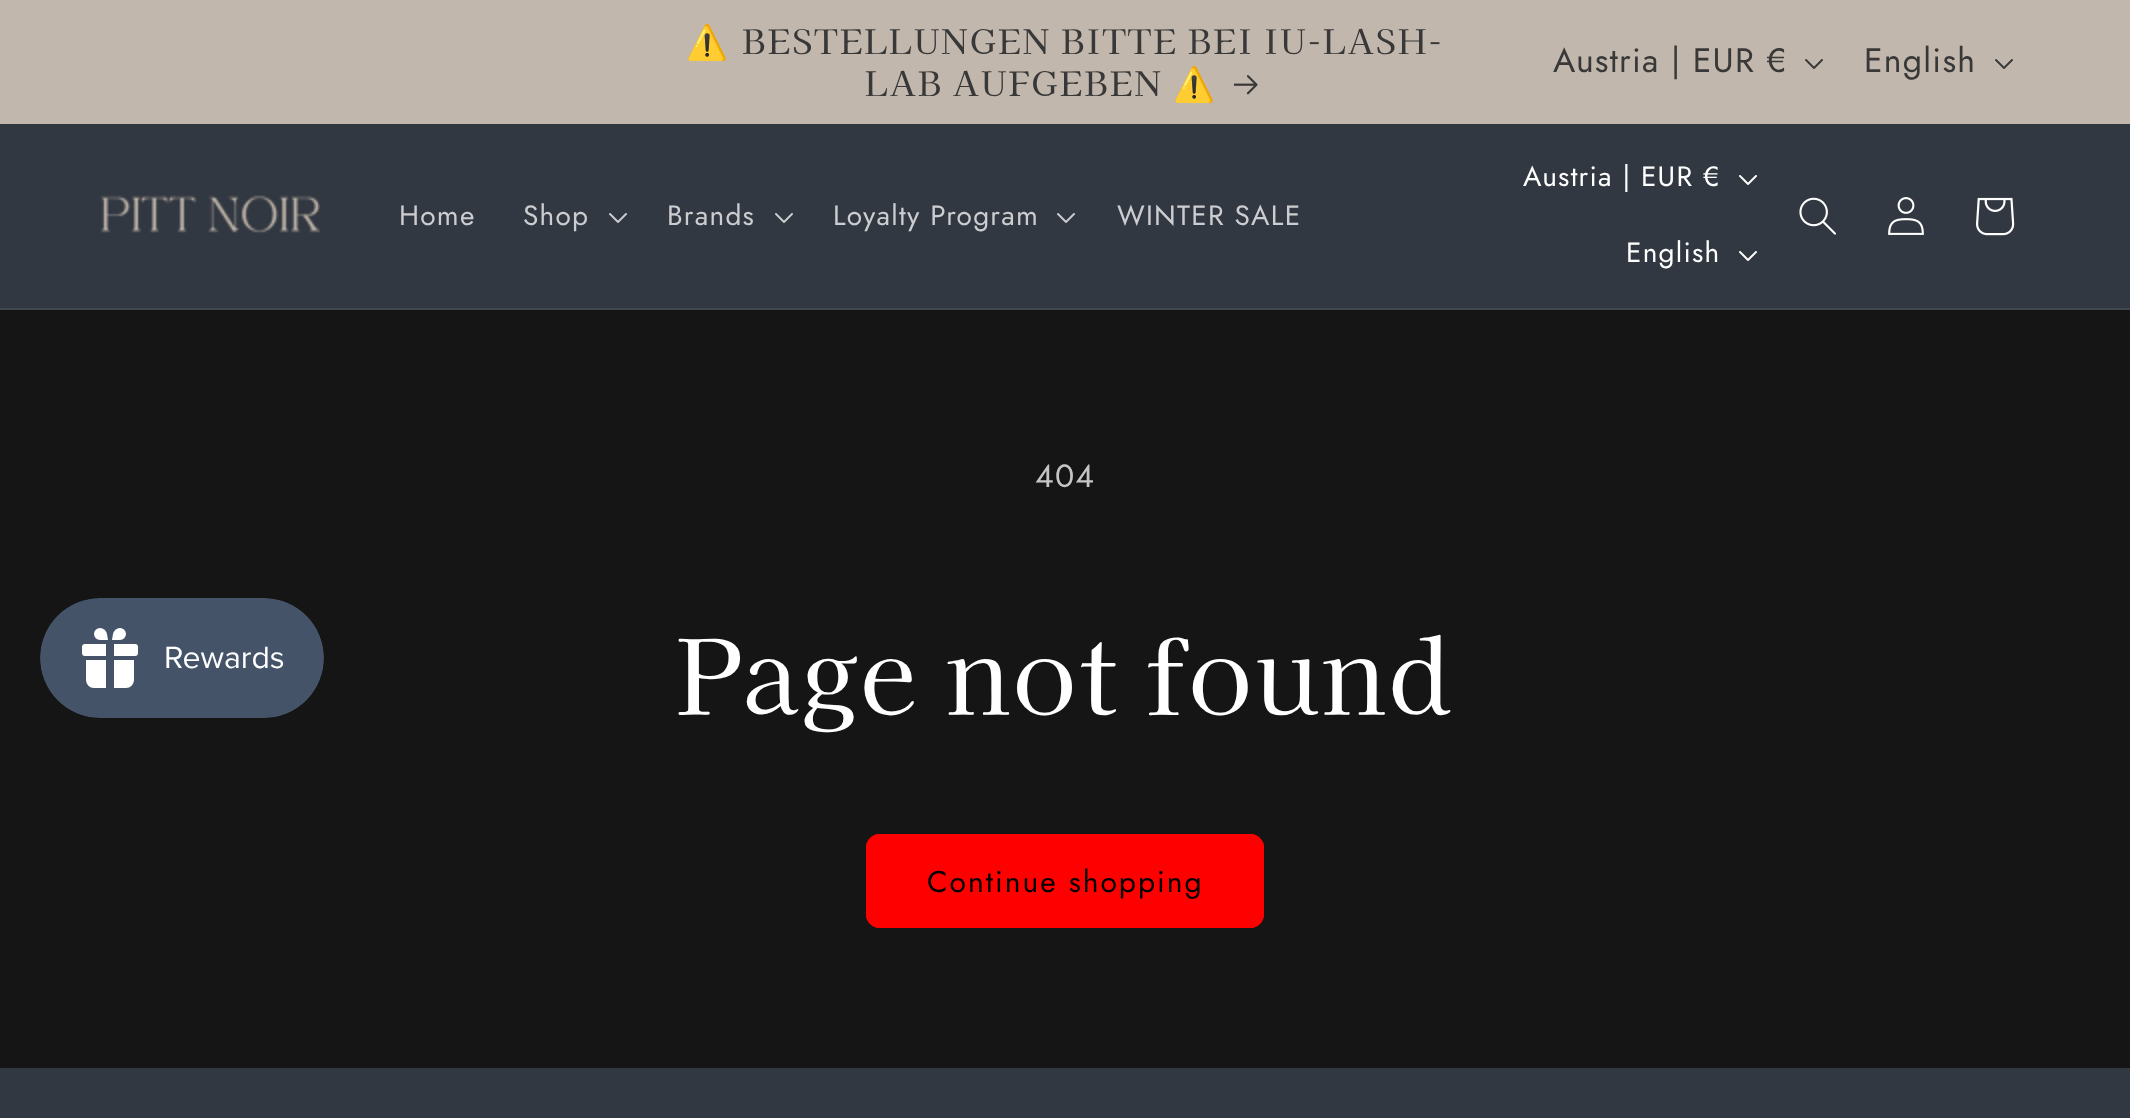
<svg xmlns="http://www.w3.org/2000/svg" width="2130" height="1118">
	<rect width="100%" height="100%" fill="#151515" />
	<rect x="0" y="0" width="2130" height="124" fill="#C2B7AC" />
	<text x="686" y="54" font-family="Noto Color Emoji" font-size="33.8" letter-spacing="2" fill="#383838">⚠️</text>
	<g font-family="Kaisei Decol" font-size="33.8" letter-spacing="2" fill="#383838">
		<text x="742" y="54" word-spacing="-0.5">BESTELLUNGEN BITTE BEI IU-LASH-</text>
		<text x="865" y="96" word-spacing="-1">LAB AUFGEBEN</text>
	</g>
	<text x="1173" y="96" font-family="Noto Color Emoji" font-size="33.8" letter-spacing="2" fill="#383838">⚠️</text>
	<image x="1234" y="75" width="24" height="20" href="assets/img1.png" />
	<text x="1553" y="72" font-family="Jost" font-size="33.8" letter-spacing="1.25" fill="#383838">Austria | EUR €</text>
	<image x="1805" y="59" width="18" height="10" href="assets/img2.png" />
	<text x="1864" y="72" font-family="Jost" font-size="33.8" letter-spacing="1.25" fill="#383838">English</text>
	<image x="1995" y="59" width="18" height="10" href="assets/img2.png" />
	<rect x="0" y="124" width="2130" height="184" fill="#323841" />
	<rect x="0" y="308" width="2130" height="2" fill="#424850" />
	<image x="100" y="195" width="220" height="39" href="assets/img3.png" />
	<g font-family="Jost" font-size="28" letter-spacing="1.25" fill="#CCCDD0">
		<text x="399" y="225">Home</text>
		<text x="523" y="225">Shop</text>
	</g>
	<image x="609" y="213" width="18" height="10" href="assets/img4.png" />
	<text x="667" y="225" font-family="Jost" font-size="28" letter-spacing="1.25" fill="#CCCDD0">Brands</text>
	<image x="775" y="213" width="18" height="10" href="assets/img4.png" />
	<text x="833" y="225" font-family="Jost" font-size="28" letter-spacing="1.25" fill="#CCCDD0">Loyalty Program</text>
	<image x="1057" y="213" width="18" height="10" href="assets/img4.png" />
	<text x="1117" y="225" font-family="Jost" font-size="28" letter-spacing="1.25" fill="#CCCDD0">WINTER SALE</text>
	<text x="1523" y="186" font-family="Jost" font-size="28" letter-spacing="1.25" fill="#FFFFFF">Austria | EUR €</text>
	<image x="1739" y="175" width="18" height="10" href="assets/img5.png" />
	<text x="1626" y="262" font-family="Jost" font-size="28" letter-spacing="1.25" fill="#FFFFFF">English</text>
	<image x="1739" y="251" width="18" height="10" href="assets/img5.png" />
	<image x="1799" y="197" width="37" height="38" href="assets/img6.png" />
	<image x="1888" y="197" width="36" height="38" href="assets/img7.png" />
	<image x="1976" y="197" width="39" height="39" href="assets/img8.png" />
	<image x="40" y="598" width="284" height="120" href="assets/img9.png" />
	<text x="1035" y="487" font-family="Jost" font-size="32" letter-spacing="1.25" fill="#C5C5C5">404</text>
	<text x="676" y="715" font-family="Kaisei Decol" font-size="104" letter-spacing="1.5" fill="#FFFFFF">Page not found</text>
	<rect x="866" y="834" width="398" height="94" rx="14" fill="#FF0000" />
	<rect x="867" y="835" width="396" height="92" rx="13" fill="none" stroke="#FF0000" stroke-width="2" />
	<text x="927" y="892" font-family="Jost" font-size="30" letter-spacing="2" fill="#000000">Continue shopping</text>
	<rect x="0" y="1068" width="2130" height="50" fill="#323841" />
</svg>
